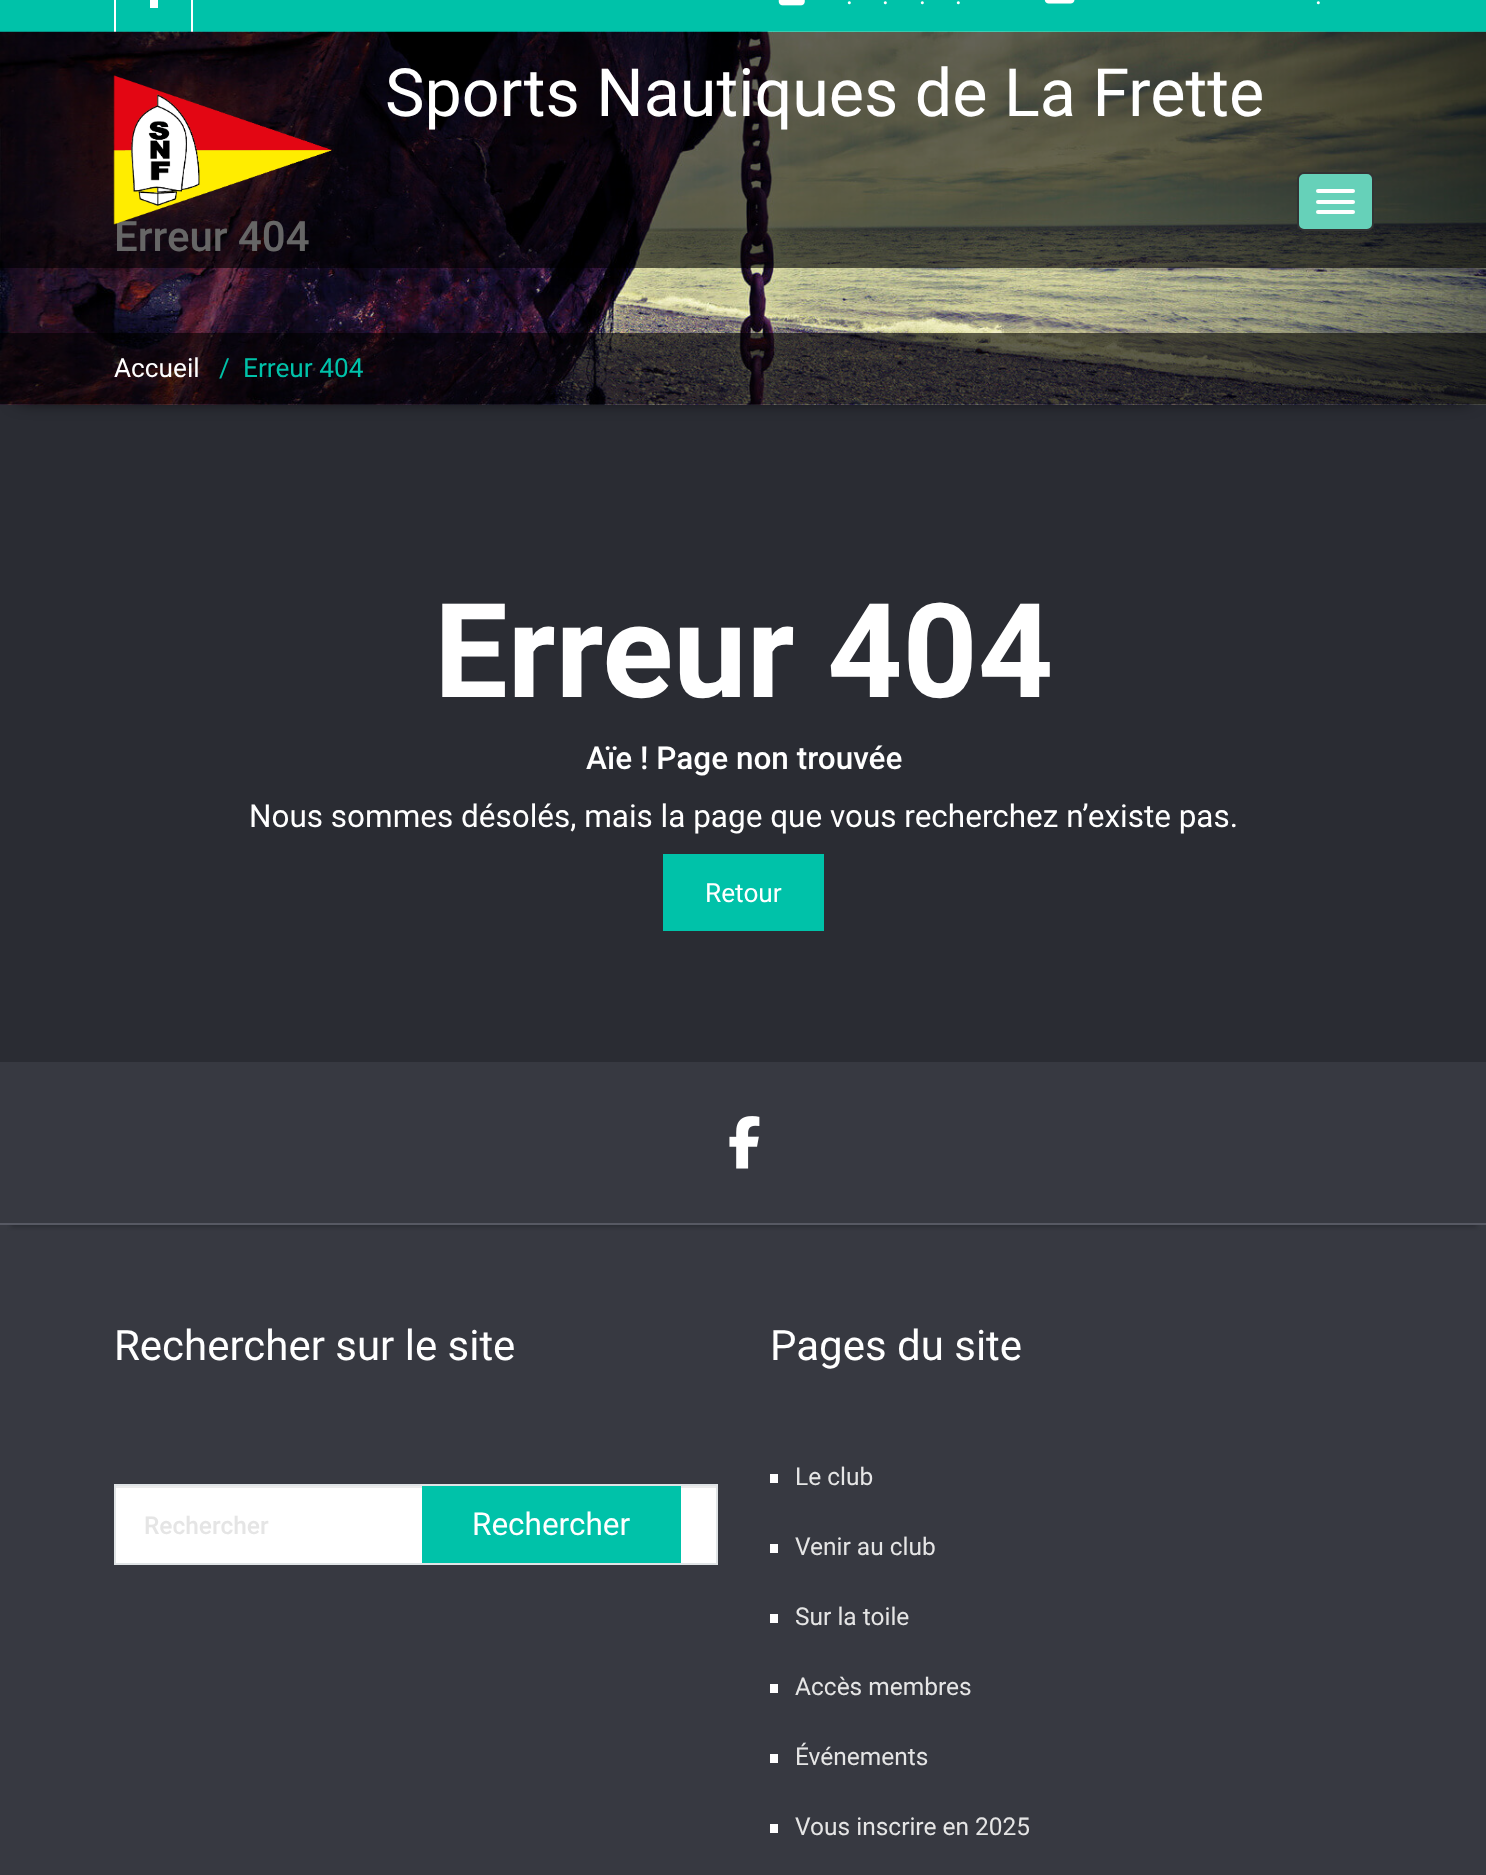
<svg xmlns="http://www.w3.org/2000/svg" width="1486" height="1875">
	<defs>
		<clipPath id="clip1"><rect x="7" y="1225" width="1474" height="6" /></clipPath>
	</defs>
	<rect width="100%" height="100%" fill="#2A2C33" />
	<rect x="0" y="0" width="1486" height="32" fill="#00C2A9" />
	<rect x="191" y="0" width="2" height="32" fill="#FFFFFF" />
	<rect x="114" y="0" width="2" height="32" fill="#FFFFFF" />
	<rect x="150" y="0" width="8" height="8" fill="#FFFFFF" />
	<image x="778" y="0" width="27" height="6" href="assets/img1.png" />
	<g font-family="Roboto" font-size="26.25" fill="#FFFFFF">
		<text x="846" y="4">.</text>
		<text x="882" y="4">.</text>
		<text x="919" y="4">.</text>
		<text x="955" y="4">.</text>
	</g>
	<image x="1044" y="0" width="31" height="4" href="assets/img2.png" />
	<text x="1315" y="4" font-family="Roboto" font-size="26.25" fill="#FFFFFF">.</text>
	<rect x="18" y="61" width="1452" height="338" fill="#000000" filter="blur(9px)" />
	<image x="0" y="31" width="1486" height="374" href="assets/img4.png" />
	<text x="114" y="251" font-family="Roboto" font-size="42" font-weight="500" fill="#FFFFFF">Erreur 404</text>
	<rect x="0" y="32" width="1486" height="236" fill="#000000" fill-opacity="0.6" />
	<image x="113" y="75" width="219" height="150" href="assets/img3.png" />
	<text x="385" y="116" font-family="Roboto" font-size="66.5" fill="#FFFFFF">Sports Nautiques de La Frette</text>
	<rect x="1298" y="173" width="75" height="57" rx="6" fill="#66D1B9" stroke="#333333" stroke-width="2" />
	<rect x="1316" y="189" width="39" height="4" rx="2" fill="#FFFFFF" />
	<rect x="1316" y="200" width="39" height="4" rx="2" fill="#FFFFFF" />
	<rect x="1316" y="210" width="39" height="4" rx="2" fill="#FFFFFF" />
	<rect x="0" y="333" width="1486" height="71" fill="#000000" fill-opacity="0.6" />
	<text x="114" y="377" font-family="Roboto" font-size="26.25" fill="#FFFFFF">Accueil</text>
	<g font-family="Roboto" font-size="26.25" fill="#00C2A9">
		<text x="219" y="377">/</text>
		<text x="243" y="377">Erreur 404</text>
	</g>
	<text x="434" y="697" font-family="Roboto" font-size="131.25" font-weight="700" fill="#FFFFFF">Erreur 404</text>
	<text x="586" y="769" font-family="Roboto" font-size="31.5" font-weight="500" fill="#FFFFFF">Aïe ! Page non trouvée</text>
	<text x="249" y="827" font-family="Roboto" font-size="31.5" fill="#FFFFFF">Nous sommes désolés, mais la page que vous recherchez n’existe pas.</text>
	<rect x="663" y="854" width="161" height="77" fill="#00C2A9" />
	<text x="705" y="902" font-family="Roboto" font-size="26.25" fill="#FFFFFF">Retour</text>
	<rect x="0" y="1062" width="1486" height="813" fill="#373941" />
	<g clip-path="url(#clip1)">
		<rect x="11" y="1085" width="1466" height="142" fill="#2A2C33" filter="blur(2px)" />
	</g>
	<rect x="0" y="1223" width="1486" height="2" fill="#575963" />
	<image x="729" y="1116" width="31" height="53" href="assets/img5.png" />
	<text x="114" y="1360" font-family="Roboto" font-size="42" fill="#FFFFFF">Rechercher sur le site</text>
	<rect x="116" y="1488" width="600" height="75" fill="#FFFFFF" />
	<rect x="116" y="1486" width="600" height="2" fill="#ECECEC" />
	<rect x="115" y="1485" width="602" height="79" fill="none" stroke="#E0E4E6" stroke-width="2" />
	<text x="144" y="1534" font-family="Roboto" font-size="24.5" font-weight="500" fill="#E5E5E5">Rechercher</text>
	<rect x="422" y="1486" width="259" height="77" fill="#00C2A9" />
	<text x="472" y="1535" font-family="Roboto" font-size="31.5" fill="#FFFFFF">Rechercher</text>
	<text x="770" y="1360" font-family="Roboto" font-size="42" fill="#FFFFFF">Pages du site</text>
	<text x="795" y="1485" font-family="Roboto" font-size="24.5" fill="#E5E5E5">Le club</text>
	<rect x="770" y="1474" width="8" height="9" fill="#FFFFFF" />
	<text x="795" y="1555" font-family="Roboto" font-size="24.5" fill="#E5E5E5">Venir au club</text>
	<rect x="770" y="1544" width="8" height="9" fill="#FFFFFF" />
	<text x="795" y="1625" font-family="Roboto" font-size="24.5" fill="#E5E5E5">Sur la toile</text>
	<rect x="770" y="1614" width="8" height="9" fill="#FFFFFF" />
	<text x="795" y="1695" font-family="Roboto" font-size="24.5" fill="#E5E5E5">Accès membres</text>
	<rect x="770" y="1684" width="8" height="9" fill="#FFFFFF" />
	<text x="795" y="1765" font-family="Roboto" font-size="24.5" fill="#E5E5E5">Événements</text>
	<rect x="770" y="1754" width="8" height="9" fill="#FFFFFF" />
	<text x="795" y="1835" font-family="Roboto" font-size="24.5" fill="#E5E5E5">Vous inscrire en 2025</text>
	<rect x="770" y="1824" width="8" height="9" fill="#FFFFFF" />
</svg>
